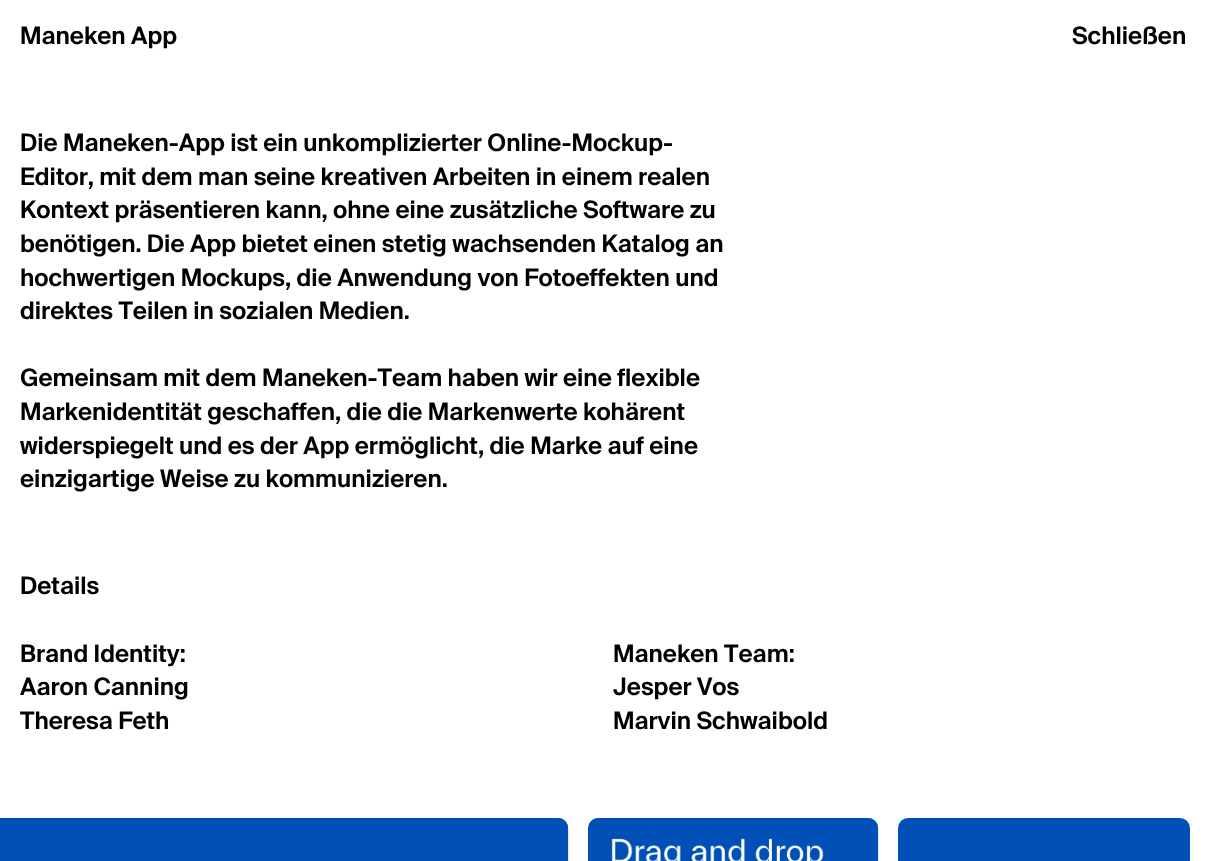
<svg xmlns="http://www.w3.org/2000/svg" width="1206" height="861">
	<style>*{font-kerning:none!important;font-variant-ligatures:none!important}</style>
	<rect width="100%" height="100%" fill="#FFFFFF" />
	<g font-family="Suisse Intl" font-size="24" font-weight="600" fill="#000000">
		<text x="20" y="44">Maneken App</text>
		<text x="20" y="151">Die Maneken-App ist ein unkomplizierter Online-Mockup-</text>
		<text x="20" y="185">Editor, mit dem man seine kreativen Arbeiten in einem realen</text>
		<text x="20" y="218">Kontext präsentieren kann, ohne eine zusätzliche Software zu</text>
		<text x="20" y="252">benötigen. Die App bietet einen stetig wachsenden Katalog an</text>
		<text x="20" y="286">hochwertigen Mockups, die Anwendung von Fotoeffekten und</text>
		<text x="20" y="319">direktes Teilen in sozialen Medien.</text>
		<text x="20" y="386">Gemeinsam mit dem Maneken-Team haben wir eine flexible</text>
		<text x="20" y="420">Markenidentität geschaffen, die die Markenwerte kohärent</text>
		<text x="20" y="454">widerspiegelt und es der App ermöglicht, die Marke auf eine</text>
		<text x="20" y="487">einzigartige Weise zu kommunizieren.</text>
		<text x="1072" y="44">Schließen</text>
		<text x="20" y="594">Details</text>
		<text x="20" y="662">Brand Identity:</text>
		<text x="20" y="695">Aaron Canning</text>
		<text x="20" y="729">Theresa Feth</text>
		<text x="613" y="662">Maneken Team:</text>
		<text x="613" y="695">Jesper Vos</text>
		<text x="613" y="729">Marvin Schwaibold</text>
	</g>
	<path d="M0 818H558C563.5 818 568 822.5 568 828V861C568 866.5 563.5 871 558 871H0Z" fill="#0050B7" />
	<image x="558" y="818" width="11" height="43" href="assets/img1.png" />
	<rect x="588" y="818" width="290" height="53" rx="10" fill="#0050B7" />
	<image x="588" y="818" width="291" height="43" href="assets/img2.png" />
	<rect x="898" y="818" width="292" height="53" rx="10" fill="#0050B7" />
</svg>
